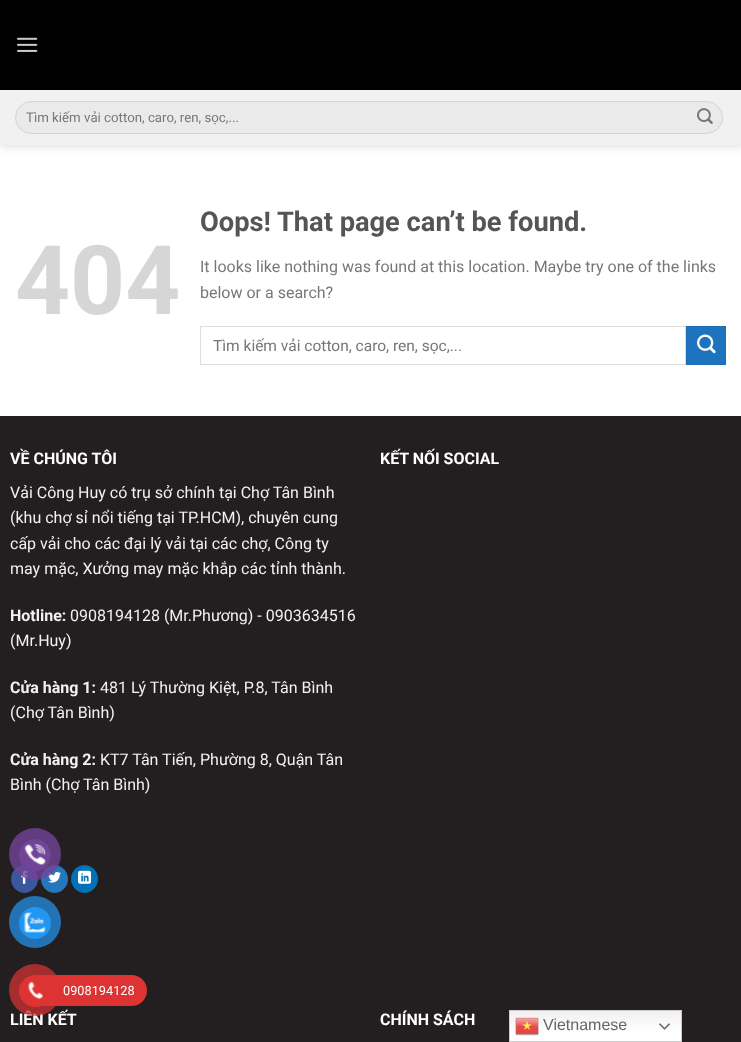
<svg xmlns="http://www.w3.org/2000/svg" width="741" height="1042">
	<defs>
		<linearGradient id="g1" gradientUnits="userSpaceOnUse" x1="596" y1="1010" x2="596" y2="1042"><stop offset="0" stop-color="#EFEFEF" /><stop offset="0.7" stop-color="#FFFFFF" /></linearGradient>
	</defs>
	<rect width="100%" height="100%" fill="#FFFFFF" />
	<rect x="1" y="1" width="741" height="145" fill="#000000" fill-opacity="0.15" filter="blur(5px)" />
	<rect x="0" y="0" width="741" height="90" fill="#000000" />
	<image x="17" y="37" width="21" height="15" href="assets/img1.png" />
	<rect x="0" y="90" width="741" height="55" fill="#F1F1F1" />
	<rect x="15" y="101" width="708" height="33" rx="16.5" fill="#EAEAEA" />
	<rect x="15.5" y="101.5" width="707" height="32" rx="16" fill="none" stroke="#000000" stroke-opacity="0.09" />
	<text x="26" y="122" font-family="Roboto" font-size="13.25" fill="#777777">Tìm kiếm vải cotton, caro, ren, sọc,...</text>
	<image x="697" y="108" width="16" height="16" href="assets/img2.png" />
	<text x="15" y="314" font-family="Roboto" font-size="96" font-weight="700" fill="#D6D6D6">404</text>
	<text x="200" y="231" font-family="Roboto" font-size="27.25" font-weight="700" fill="#555555">Oops! That page can’t be found.</text>
	<g font-family="Roboto" font-size="16" fill="#777777">
		<text x="200" y="272">It looks like nothing was found at this location. Maybe try one of the links</text>
		<text x="200" y="298">below or a search?</text>
	</g>
	<rect x="200.5" y="326.5" width="485" height="38" fill="none" stroke="#DDDDDD" />
	<text x="213" y="351" font-family="Roboto" font-size="15.5" fill="#777777">Tìm kiếm vải cotton, caro, ren, sọc,...</text>
	<rect x="686.5" y="326.5" width="39" height="38" fill="#1E73BE" stroke="#1D6DB5" />
	<image x="697" y="334" width="19" height="20" href="assets/img3.png" />
	<rect x="0" y="416" width="741" height="626" fill="#231F20" />
	<text x="10" y="464" font-family="Roboto" font-size="16" font-weight="700" fill="#FFFFFF">VỀ CHÚNG TÔI</text>
	<g font-family="Roboto" font-size="16" fill="#F1F1F1">
		<text x="10" y="498">Vải Công Huy có trụ sở chính tại Chợ Tân Bình</text>
		<text x="10" y="523">(khu chợ sỉ nổi tiếng tại TP.HCM), chuyên cung</text>
		<text x="10" y="549">cấp vải cho các đại lý vải tại các chợ, Công ty</text>
		<text x="10" y="574">may mặc, Xưởng may mặc khắp các tỉnh thành.</text>
	</g>
	<text x="10" y="621" font-family="Roboto" font-size="16" font-weight="700" fill="#F1F1F1">Hotline:</text>
	<g font-family="Roboto" font-size="16" fill="#F1F1F1">
		<text x="70" y="621">0908194128 (Mr.Phương) - 0903634516</text>
		<text x="10" y="646">(Mr.Huy)</text>
	</g>
	<text x="10" y="693" font-family="Roboto" font-size="16" font-weight="700" fill="#F1F1F1">Cửa hàng 1:</text>
	<g font-family="Roboto" font-size="16" fill="#F1F1F1">
		<text x="100" y="693">481 Lý Thường Kiệt, P.8, Tân Bình</text>
		<text x="10" y="718">(Chợ Tân Bình)</text>
	</g>
	<text x="10" y="765" font-family="Roboto" font-size="16" font-weight="700" fill="#F1F1F1">Cửa hàng 2:</text>
	<g font-family="Roboto" font-size="16" fill="#F1F1F1">
		<text x="100" y="765">KT7 Tân Tiến, Phường 8, Quận Tân</text>
		<text x="10" y="790">Bình (Chợ Tân Bình)</text>
	</g>
	<rect x="11.5" y="865.5" width="26" height="27" rx="13" fill="#3A589D" stroke="#3A589D" />
	<image x="21" y="870" width="7" height="14" href="assets/img4.png" />
	<rect x="41.5" y="865.5" width="26" height="27" rx="13" fill="#2478BA" stroke="#2478BA" />
	<image x="48" y="872" width="13" height="11" href="assets/img5.png" />
	<rect x="71.5" y="865.5" width="26" height="27" rx="13" fill="#0072B7" stroke="#0072B7" />
	<image x="78" y="870" width="14" height="14" href="assets/img6.png" />
	<g font-family="Roboto" font-size="16" font-weight="700" fill="#FFFFFF">
		<text x="380" y="464">KẾT NỐI SOCIAL</text>
		<text x="10" y="1025">LIÊN KẾT</text>
		<text x="380" y="1025">CHÍNH SÁCH</text>
	</g>
	<circle cx="35" cy="854" r="26" fill="#714497" fill-opacity="0.8" />
	<circle cx="35" cy="855" r="16" fill="#714497" />
	<image x="24" y="844" width="22" height="21" href="assets/img7.png" />
	<circle cx="35" cy="922" r="26" fill="#2272B4" />
	<circle cx="35" cy="923" r="16" fill="#2196F3" />
	<image x="23" y="912" width="23" height="21" href="assets/img8.png" />
	<rect x="23" y="975" width="124" height="31" rx="15.5" fill="#DD3333" />
	<circle cx="35" cy="990" r="26" fill="#DD3333" fill-opacity="0.7" />
	<circle cx="35" cy="991" r="16" fill="#DD3333" />
	<image x="27" y="981" width="16" height="19" href="assets/img9.png" />
	<text x="63" y="995" font-family="Roboto" font-size="12.75" fill="#FFFFFF">0908194128</text>
	<rect x="510" y="1011" width="171" height="30" fill="url(#g1)" />
	<rect x="509.5" y="1010.5" width="172" height="31" fill="none" stroke="#CCCCCC" />
	<image x="515" y="1017" width="24" height="19" href="assets/img10.png" />
	<text x="543" y="1030" font-family="Liberation Sans" font-size="16" fill="#666666">Vietnamese</text>
	<image x="659" y="1023" width="11" height="7" href="assets/img11.png" />
</svg>
